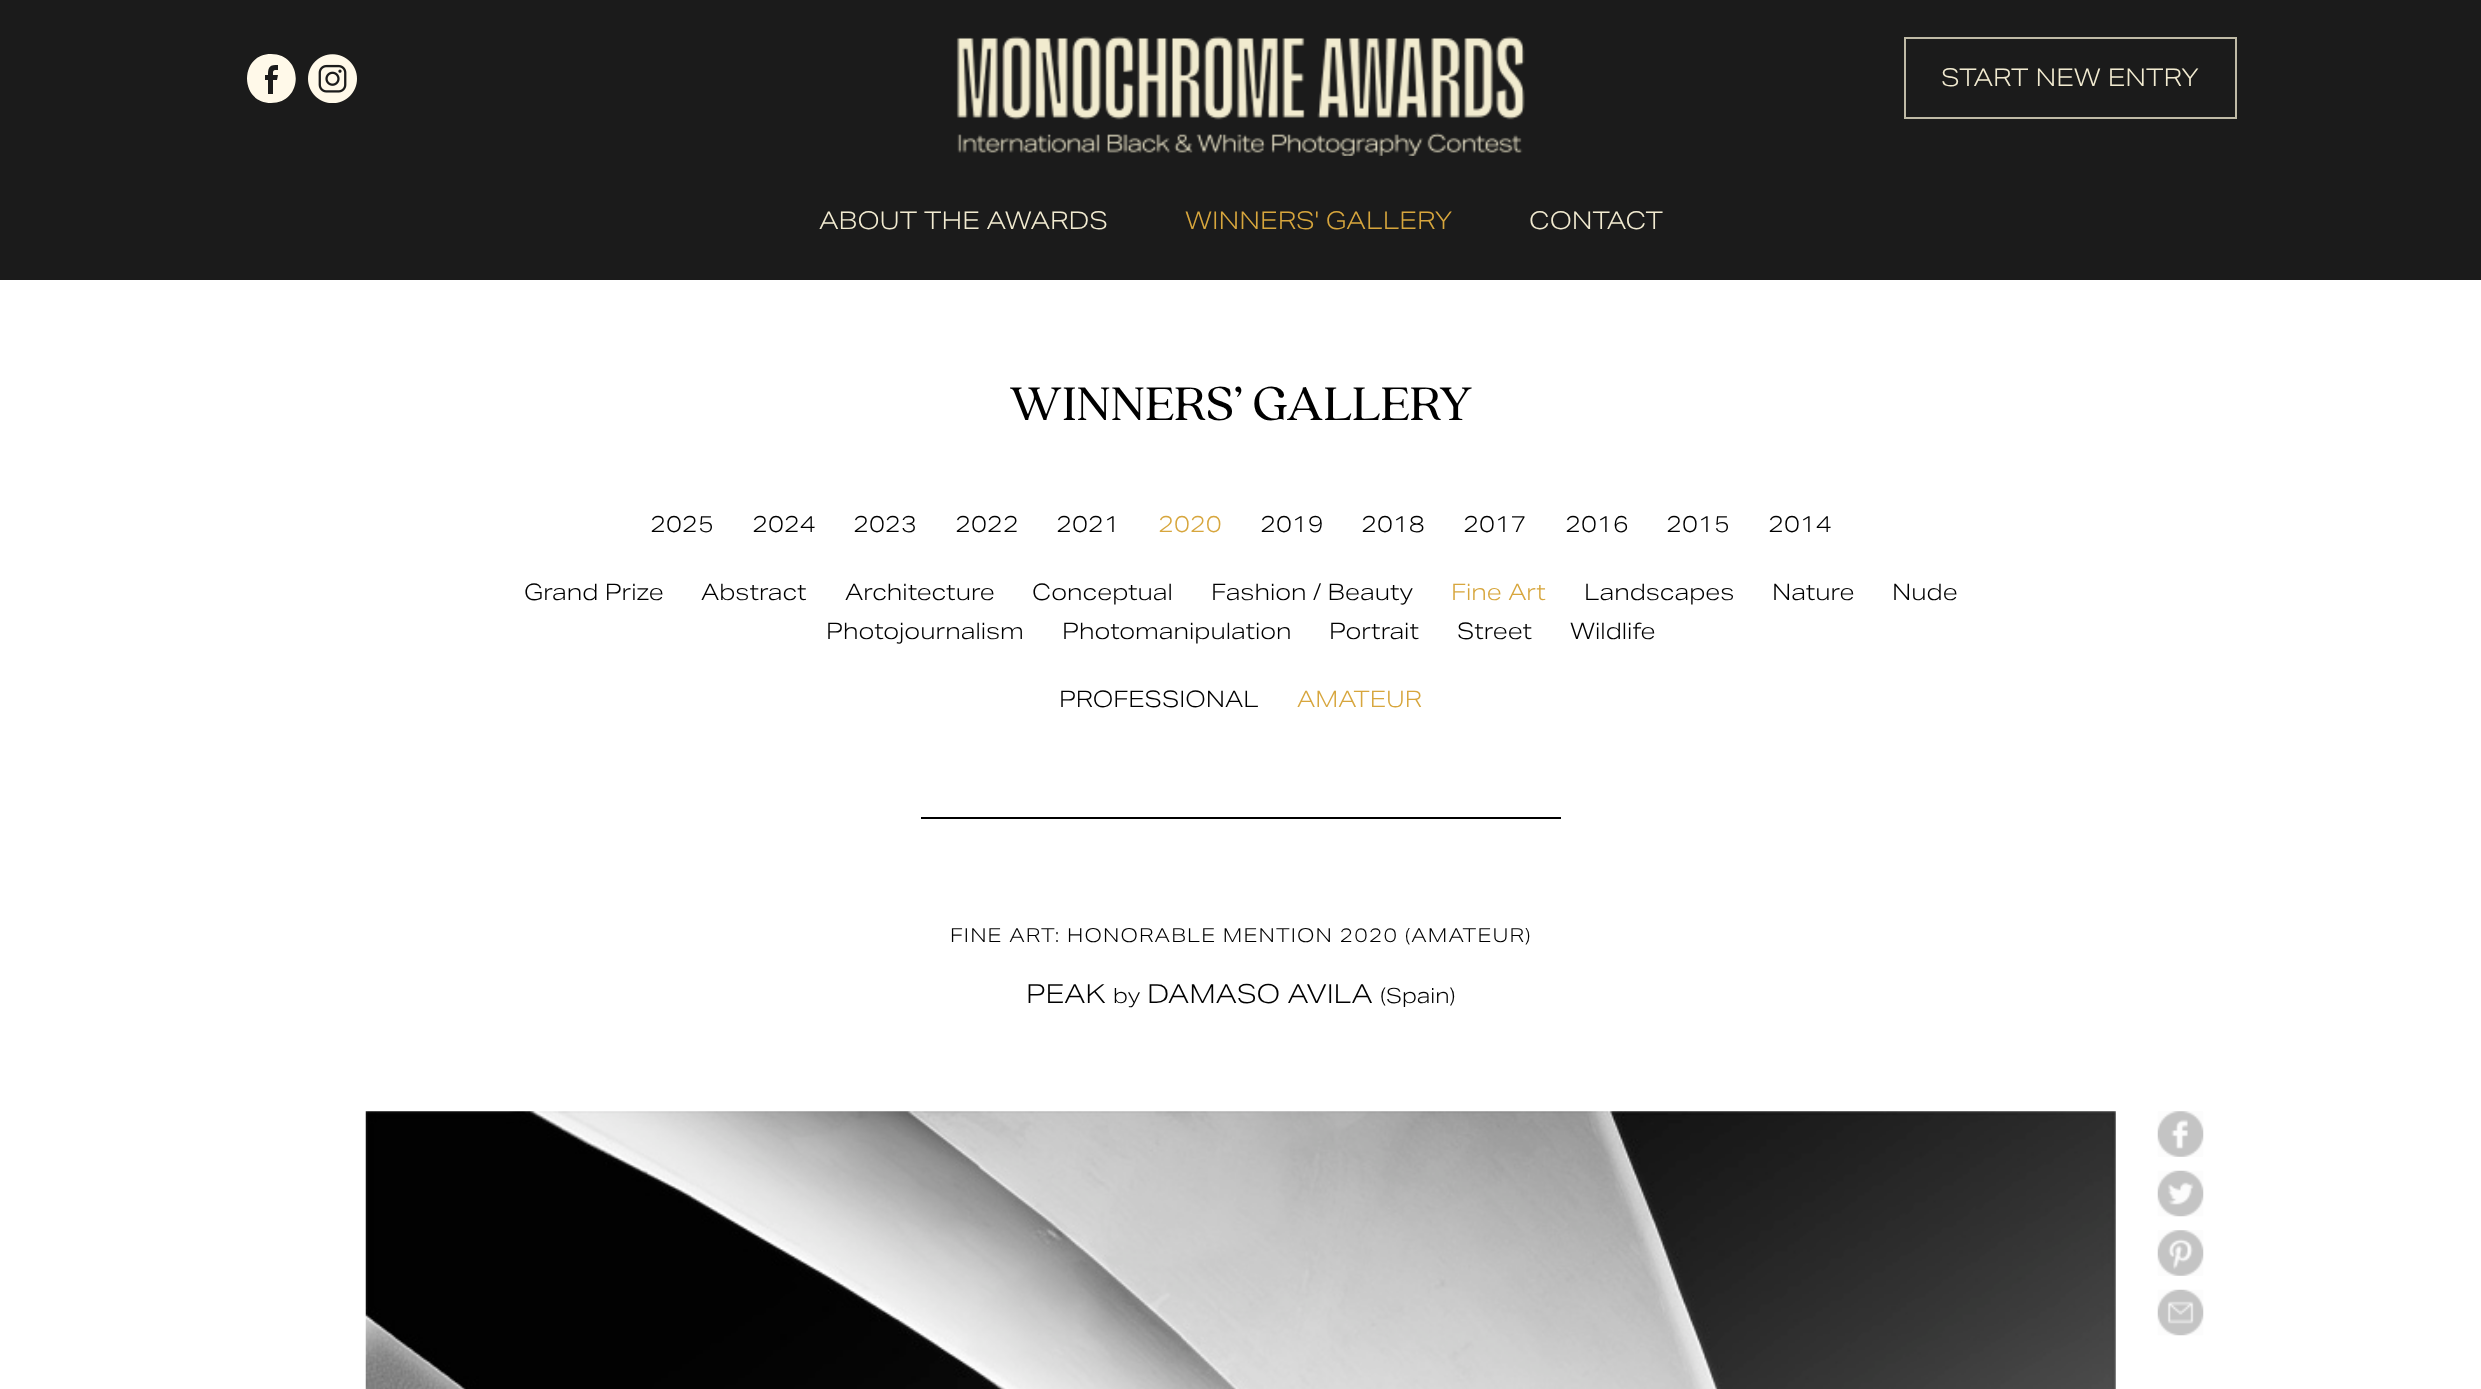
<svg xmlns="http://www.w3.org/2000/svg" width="2481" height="1389">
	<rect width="100%" height="100%" fill="#1B1B1B" />
	<path d="M271 54C239 54 239 103 271 103C304 103 304 54 271 54ZM278 70C273 70 273 70 273 75H278L277 80H273V94H268V80H265V75H268C268 66 270 65 278 65Z" fill="#FFF9E9" />
	<image x="308" y="54" width="49" height="49" href="assets/img1.png" />
	<image x="956" y="36" width="569" height="120" href="assets/img2.png" />
	<rect x="1905" y="38" width="331" height="80" fill="none" stroke="#BFBAA6" stroke-width="2" />
	<g font-family="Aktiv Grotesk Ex" font-size="24.5" font-weight="300" fill="#F2EBD1">
		<text x="1941" y="86">START NEW ENTRY</text>
		<text x="819" y="229">ABOUT THE AWARDS</text>
	</g>
	<text x="1185" y="229" font-family="Aktiv Grotesk Ex" font-size="24.5" font-weight="300" fill="#D7A63D">WINNERS' GALLERY</text>
	<text x="1529" y="229" font-family="Aktiv Grotesk Ex" font-size="24.5" font-weight="300" fill="#F2EBD1">CONTACT</text>
	<rect x="0" y="280" width="2481" height="1109" fill="#FFFFFF" />
	<text x="1009" y="420" font-family="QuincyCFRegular" font-size="52.5" fill="#000000">WINNERS’ GALLERY</text>
	<g font-family="Aktiv Grotesk Ex" font-size="22.75" font-weight="300" fill="#000000">
		<text x="650" y="532">2025</text>
		<text x="752" y="532">2024</text>
		<text x="853" y="532">2023</text>
		<text x="955" y="532">2022</text>
		<text x="1056" y="532">2021</text>
	</g>
	<text x="1158" y="532" font-family="Aktiv Grotesk Ex" font-size="22.75" font-weight="300" fill="#D7A63D">2020</text>
	<g font-family="Aktiv Grotesk Ex" font-size="22.75" font-weight="300" fill="#000000">
		<text x="1260" y="532">2019</text>
		<text x="1361" y="532">2018</text>
		<text x="1463" y="532">2017</text>
		<text x="1565" y="532">2016</text>
		<text x="1666" y="532">2015</text>
		<text x="1768" y="532">2014</text>
		<text x="524" y="600">Grand Prize</text>
		<text x="701" y="600">Abstract</text>
		<text x="845" y="600">Architecture</text>
		<text x="1032" y="600">Conceptual</text>
		<text x="1211" y="600">Fashion / Beauty</text>
	</g>
	<text x="1451" y="600" font-family="Aktiv Grotesk Ex" font-size="22.75" font-weight="300" fill="#D7A63D">Fine Art</text>
	<g font-family="Aktiv Grotesk Ex" font-size="22.75" font-weight="300" fill="#000000">
		<text x="1584" y="600">Landscapes</text>
		<text x="1772" y="600">Nature</text>
		<text x="1892" y="600">Nude</text>
		<text x="826" y="639">Photojournalism</text>
		<text x="1062" y="639">Photomanipulation</text>
		<text x="1329" y="639">Portrait</text>
		<text x="1457" y="639">Street</text>
		<text x="1570" y="639">Wildlife</text>
		<text x="1059" y="707">PROFESSIONAL</text>
	</g>
	<text x="1297" y="707" font-family="Aktiv Grotesk Ex" font-size="22.75" font-weight="300" fill="#D7A63D">AMATEUR</text>
	<rect x="921" y="817" width="640" height="2" fill="#000000" />
	<text x="950" y="942" font-family="Aktiv Grotesk Ex" font-size="19.25" font-weight="300" letter-spacing="1.15" fill="#000000">FINE ART: HONORABLE MENTION 2020 (AMATEUR)</text>
	<text x="1026" y="1003" font-family="Aktiv Grotesk Ex" font-size="26.25" font-weight="300" fill="#000000">PEAK</text>
	<text x="1113" y="1003" font-family="Aktiv Grotesk Ex" font-size="21" font-weight="300" fill="#000000">by</text>
	<text x="1147" y="1003" font-family="Aktiv Grotesk Ex" font-size="26.25" font-weight="300" fill="#000000">DAMASO AVILA</text>
	<text x="1380" y="1003" font-family="Aktiv Grotesk Ex" font-size="21" font-weight="300" fill="#000000">(Spain)</text>
	<image x="365" y="1111" width="1751" height="278" href="assets/img3.png" />
	<image x="2157" y="1111" width="47" height="46" href="assets/img4.png" />
	<image x="2157" y="1170" width="47" height="47" href="assets/img5.png" />
	<image x="2157" y="1230" width="47" height="46" href="assets/img6.png" />
	<image x="2157" y="1289" width="47" height="47" href="assets/img7.png" />
</svg>
